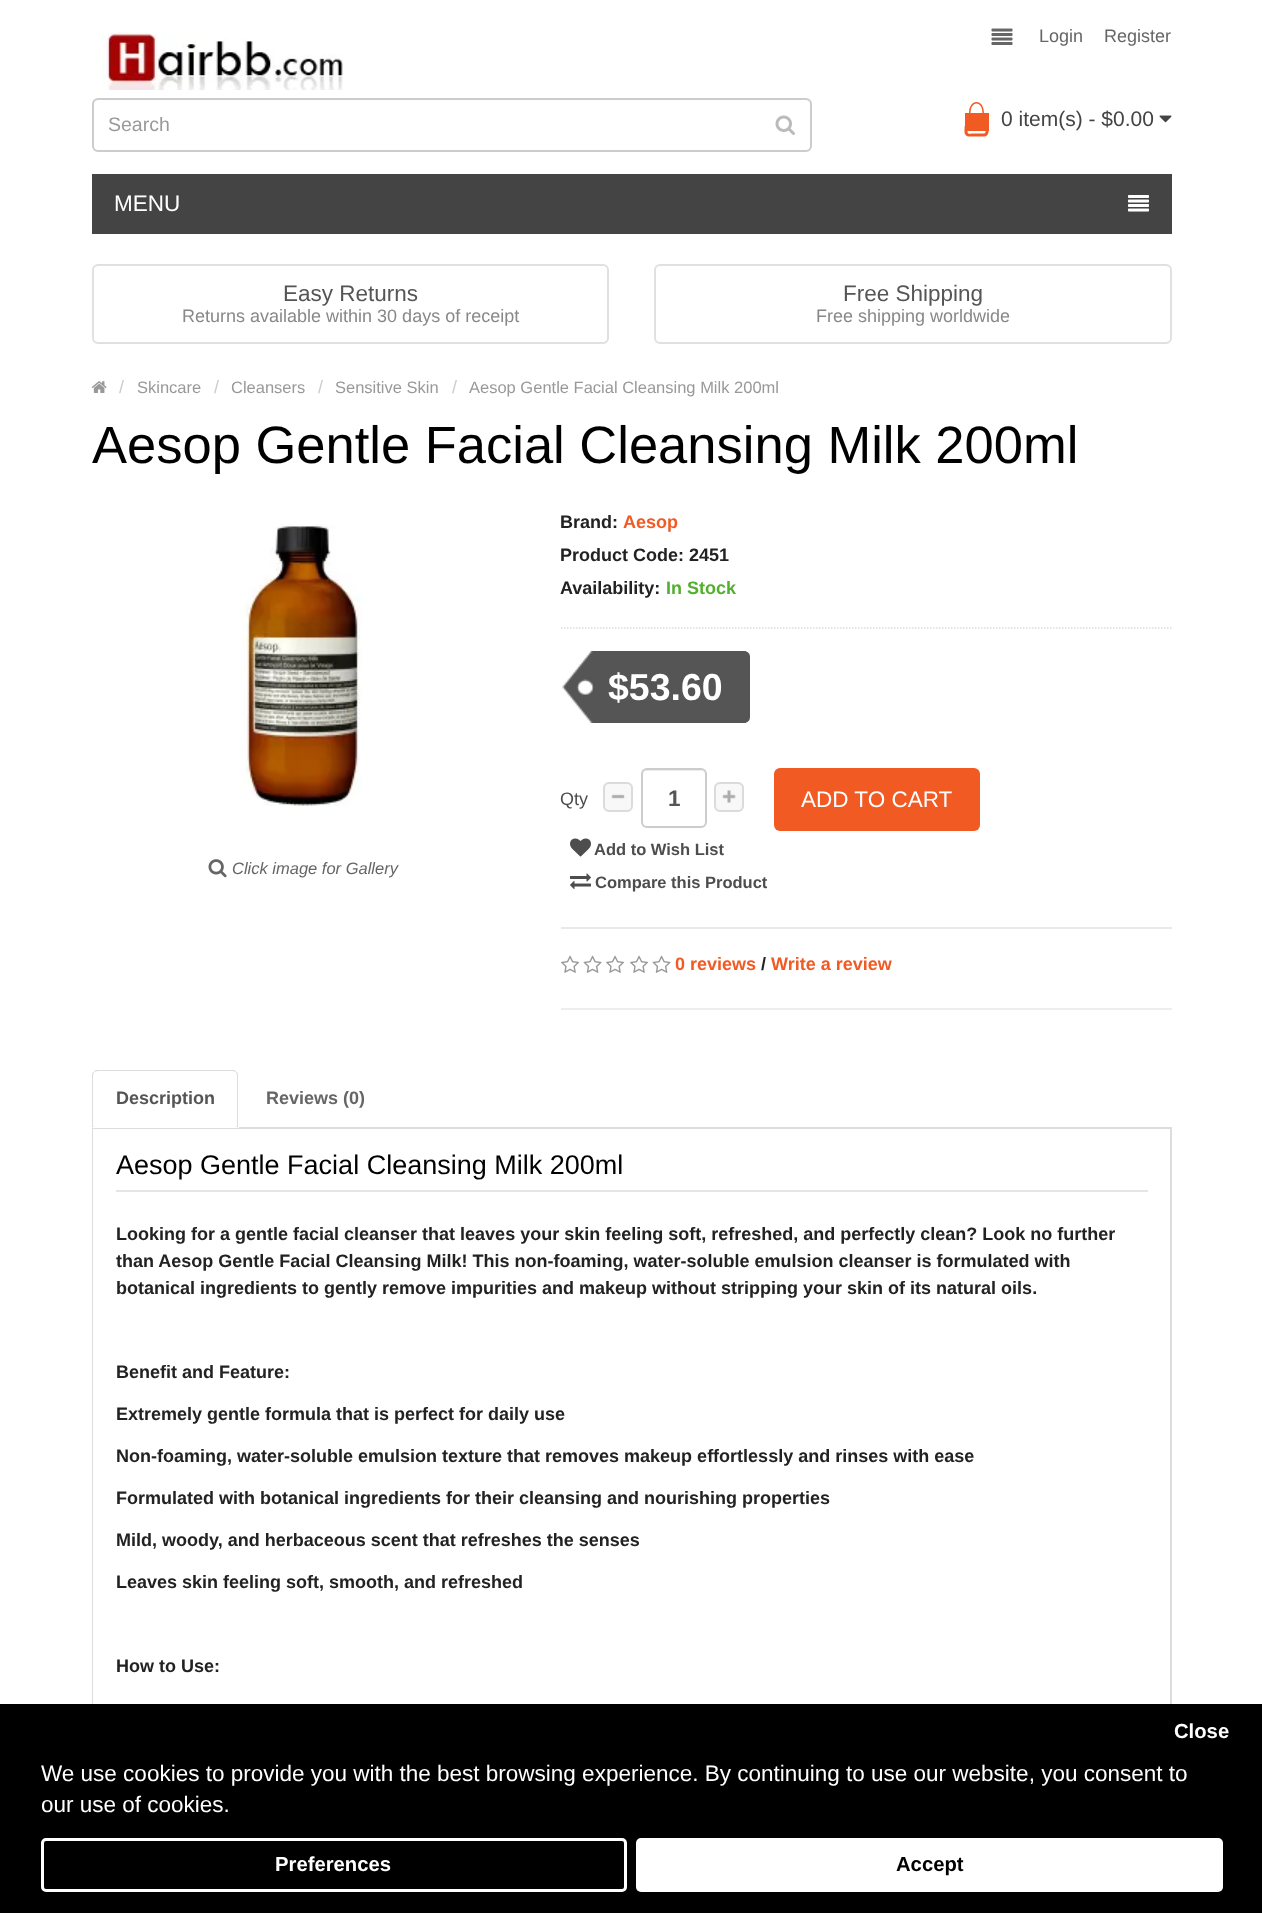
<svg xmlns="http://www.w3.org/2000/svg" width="1262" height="1913">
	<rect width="100%" height="100%" fill="#FFFFFF" />
	<image x="102" y="32" width="241" height="58" href="assets/img1.png" />
	<image x="991" y="28" width="22" height="17" href="assets/img2.png" />
	<g font-family="Liberation Sans" font-size="18" fill="#666666">
		<text x="1039" y="42">Login</text>
		<text x="1104" y="42">Register</text>
	</g>
	<path d="M98 100H806C808 100 810 103 810 105C810 102 808 99 805 99H98C95 99 93 102 93 105C93 103 95 100 98 100Z" fill="#ECECEC" />
	<rect x="93" y="99" width="718" height="52" rx="5" fill="none" stroke="#CCCCCC" stroke-width="2" />
	<text x="108" y="131" font-family="Liberation Sans" font-size="19.5" fill="#999999">Search</text>
	<image x="775" y="115" width="20" height="20" href="assets/img3.png" />
	<rect x="965" y="113" width="24" height="18" fill="#F15A23" />
	<path d="M976.5 102C986.5 102 986.5 124.5 976.5 124.5C966.5 124.5 966.5 102 976.5 102ZM976.5 103.5C985 103.5 984 124.5 976.5 124.5C969 124.5 968 103.5 976.5 103.5Z" fill="#F15A23" fill-rule="evenodd" />
	<path d="M969 123H984C986.5 123 988.5 125 988.5 127.5V132C988.5 134.5 986.5 136.5 984 136.5H969C966.5 136.5 964.5 134.5 964.5 132V127.5C964.5 125 966.5 123 969 123ZM969 123H979C984 123 985.5 122 985.5 127.5C985.5 129 986.5 133.5 984 133.5H974C968 133.5 967.5 135 967.5 129.5C967.5 128.5 967.5 123 969 123Z" fill="#F15A23" fill-rule="evenodd" />
	<text x="1001" y="126" font-family="Liberation Sans" font-size="21" fill="#444444">0 item(s) - $0.00</text>
	<image x="1159" y="115" width="13" height="8" href="assets/img4.png" />
	<rect x="92" y="174" width="1080" height="60" fill="#444444" />
	<text x="114" y="211" font-family="Liberation Sans" font-size="22.5" fill="#FFFFFF">MENU</text>
	<image x="1128" y="195" width="21" height="17" href="assets/img5.png" />
	<rect x="93" y="265" width="515" height="78" rx="5" fill="none" stroke="#E0E0E0" stroke-width="2" />
	<text x="283" y="301" font-family="Liberation Sans" font-size="22.5" fill="#555555">Easy Returns</text>
	<text x="182" y="322" font-family="Liberation Sans" font-size="18" fill="#888888">Returns available within 30 days of receipt</text>
	<rect x="655" y="265" width="516" height="78" rx="5" fill="none" stroke="#E0E0E0" stroke-width="2" />
	<text x="843" y="301" font-family="Liberation Sans" font-size="22.5" fill="#555555">Free Shipping</text>
	<text x="816" y="322" font-family="Liberation Sans" font-size="18" fill="#888888">Free shipping worldwide</text>
	<image x="91" y="381" width="16" height="12" href="assets/img6.png" />
	<text x="119" y="393" font-family="Liberation Sans" font-size="18" fill="#CCCCCC">/</text>
	<text x="137" y="393" font-family="Liberation Sans" font-size="16.5" fill="#999999">Skincare</text>
	<text x="214" y="393" font-family="Liberation Sans" font-size="18" fill="#CCCCCC">/</text>
	<text x="231" y="393" font-family="Liberation Sans" font-size="16.5" fill="#999999">Cleansers</text>
	<text x="318" y="393" font-family="Liberation Sans" font-size="18" fill="#CCCCCC">/</text>
	<text x="335" y="393" font-family="Liberation Sans" font-size="16.5" fill="#999999">Sensitive Skin</text>
	<text x="452" y="393" font-family="Liberation Sans" font-size="18" fill="#CCCCCC">/</text>
	<text x="469" y="393" font-family="Liberation Sans" font-size="16.5" fill="#999999">Aesop Gentle Facial Cleansing Milk 200ml</text>
	<text x="92" y="463" font-family="Liberation Sans" font-size="52.5" fill="#000000">Aesop Gentle Facial Cleansing Milk 200ml</text>
	<image x="242" y="524" width="121" height="282" href="assets/img7.png" />
	<image x="208" y="859" width="19" height="19" href="assets/img8.png" />
	<text x="232" y="874" font-family="Liberation Sans" font-size="16.5" font-style="italic" fill="#666666">Click image for Gallery</text>
	<text x="560" y="528" font-family="Liberation Sans" font-size="18" font-weight="700" fill="#222222">Brand:</text>
	<text x="623" y="528" font-family="Liberation Sans" font-size="18" font-weight="700" fill="#F15A23">Aesop</text>
	<g font-family="Liberation Sans" font-size="18" font-weight="700" fill="#222222">
		<text x="560" y="561">Product Code: 2451</text>
		<text x="560" y="594">Availability:</text>
	</g>
	<text x="666" y="594" font-family="Liberation Sans" font-size="18" font-weight="700" fill="#53AF2E">In Stock</text>
	<path d="M561 628H1171.5" fill="none" stroke="#DDDDDD" stroke-width="1.5" stroke-dasharray="1.5 1.5" />
	<path d="M561 651H744C747.5 651 750 653.5 750 657V717C750 720.5 747.5 723 744 723H561Z" fill="#555555" />
	<image x="561" y="651" width="33" height="72" href="assets/img9.png" />
	<text x="608" y="700" font-family="Liberation Sans" font-size="37.5" font-weight="700" fill="#FFFFFF">$53.60</text>
	<rect x="561" y="927" width="611" height="2" fill="#EAE9E9" />
	<text x="560" y="805" font-family="Liberation Sans" font-size="18" fill="#4D4D4D">Qty</text>
	<rect x="603" y="782" width="30" height="30" rx="6" fill="#F8F8F8" />
	<image x="611" y="794" width="14" height="5" href="assets/img10.png" />
	<rect x="604" y="783" width="28" height="28" rx="5" fill="none" stroke="#DBDBDB" stroke-width="2" />
	<path d="M646 771H700C703 771 705 773 705 776C705 768 697 770 691 770H656C650 770 642 768 642 776C642 773 644 771 646 771Z" fill="#ECECEC" />
	<rect x="642" y="769" width="64" height="58" rx="5" fill="none" stroke="#CCCCCC" stroke-width="2" />
	<text x="668" y="806" font-family="Liberation Sans" font-size="22.5" font-weight="700" fill="#555555">1</text>
	<rect x="714" y="782" width="30" height="30" rx="6" fill="#F8F8F8" />
	<image x="722" y="790" width="14" height="13" href="assets/img11.png" />
	<rect x="715" y="783" width="28" height="28" rx="5" fill="none" stroke="#DBDBDB" stroke-width="2" />
	<rect x="774" y="768" width="206" height="63" rx="6" fill="#F15A23" />
	<text x="801" y="807" font-family="Liberation Sans" font-size="22.5" fill="#FFFFFF">ADD TO CART</text>
	<image x="570" y="838" width="21" height="19" href="assets/img12.png" />
	<text x="594" y="855" font-family="Liberation Sans" font-size="16.5" font-weight="700" fill="#4D4D4D">Add to Wish List</text>
	<image x="570" y="873" width="21" height="17" href="assets/img13.png" />
	<text x="595" y="888" font-family="Liberation Sans" font-size="16.5" font-weight="700" fill="#4D4D4D">Compare this Product</text>
	<image x="561" y="955" width="18" height="18" href="assets/img14.png" />
	<image x="583" y="955" width="19" height="18" href="assets/img15.png" />
	<image x="606" y="955" width="18" height="18" href="assets/img14.png" />
	<image x="630" y="955" width="18" height="18" href="assets/img14.png" />
	<image x="652" y="955" width="19" height="18" href="assets/img15.png" />
	<text x="675" y="970" font-family="Liberation Sans" font-size="18" font-weight="700" fill="#F15A23">0 reviews</text>
	<text x="761" y="970" font-family="Liberation Sans" font-size="18" font-weight="700" fill="#222222">/</text>
	<text x="771" y="970" font-family="Liberation Sans" font-size="18" font-weight="700" fill="#F15A23">Write a review</text>
	<rect x="561" y="1008" width="611" height="2" fill="#EEEEEE" />
	<rect x="92" y="1127" width="1080" height="2" fill="#DDDDDD" />
	<path d="M98 1070H233C236.5 1070 239 1072.5 239 1076V1128H92V1076C92 1072.5 94.5 1070 98 1070Z" fill="#FFFFFF" />
	<path d="M98 1070C96 1070 94 1070 94 1072C95 1072 96 1071 98 1071H232C234 1071 235 1072 236 1072C236 1070 234 1070 232 1070Z" fill="#DDDDDD" />
	<path d="M238 1128V1076C238 1074 238 1072 236 1072C236 1073 237 1074 237 1076V1126H236Z" fill="#DDDDDD" />
	<path d="M94 1072C92 1072 92 1074 92 1076V1128L94 1126H93V1076C93 1074 94 1073 94 1072Z" fill="#DDDDDD" />
	<text x="116" y="1104" font-family="Liberation Sans" font-size="18" font-weight="700" fill="#555555">Description</text>
	<text x="266" y="1104" font-family="Liberation Sans" font-size="18" font-weight="700" fill="#666666">Reviews (0)</text>
	<path d="M92 1128H1172V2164C1172 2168 1169 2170 1166 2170H98C94 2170 92 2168 92 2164ZM93 1128H1170V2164C1170 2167 1168 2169 1166 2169H98C95 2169 93 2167 93 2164Z" fill="#DDDDDD" fill-rule="evenodd" />
	<rect x="116" y="1190" width="1032" height="2" fill="#E5E5E5" />
	<text x="116" y="1174" font-family="Liberation Sans" font-size="27" fill="#000000">Aesop Gentle Facial Cleansing Milk 200ml</text>
	<g font-family="Liberation Sans" font-size="18" font-weight="700" fill="#222222">
		<text x="116" y="1240">Looking for a gentle facial cleanser that leaves your skin feeling soft, refreshed, and perfectly clean? Look no further</text>
		<text x="116" y="1267">than Aesop Gentle Facial Cleansing Milk! This non-foaming, water-soluble emulsion cleanser is formulated with</text>
		<text x="116" y="1294">botanical ingredients to gently remove impurities and makeup without stripping your skin of its natural oils.</text>
		<text x="116" y="1378">Benefit and Feature:</text>
		<text x="116" y="1420">Extremely gentle formula that is perfect for daily use</text>
		<text x="116" y="1462">Non-foaming, water-soluble emulsion texture that removes makeup effortlessly and rinses with ease</text>
		<text x="116" y="1504">Formulated with botanical ingredients for their cleansing and nourishing properties</text>
		<text x="116" y="1546">Mild, woody, and herbaceous scent that refreshes the senses</text>
		<text x="116" y="1588">Leaves skin feeling soft, smooth, and refreshed</text>
		<text x="116" y="1672">How to Use:</text>
	</g>
	<rect x="0" y="1704" width="1262" height="209" fill="#000000" />
	<text x="1174" y="1738" font-family="Liberation Sans" font-size="20.25" font-weight="700" fill="#FFFFFF">Close</text>
	<rect x="42.5" y="1839.5" width="583" height="51" rx="3.5" fill="none" stroke="#FFFFFF" stroke-width="3" />
	<text x="275" y="1871" font-family="Liberation Sans" font-size="20.25" font-weight="700" fill="#FFFFFF">Preferences</text>
	<rect x="636" y="1838" width="587" height="54" rx="5" fill="#FFFFFF" />
	<text x="896" y="1871" font-family="Liberation Sans" font-size="20.25" font-weight="700" fill="#000000">Accept</text>
	<g font-family="Liberation Sans" font-size="22.5" fill="#FFFFFF">
		<text x="41" y="1781">We use cookies to provide you with the best browsing experience. By continuing to use our website, you consent to</text>
		<text x="41" y="1812">our use of cookies.</text>
	</g>
</svg>
